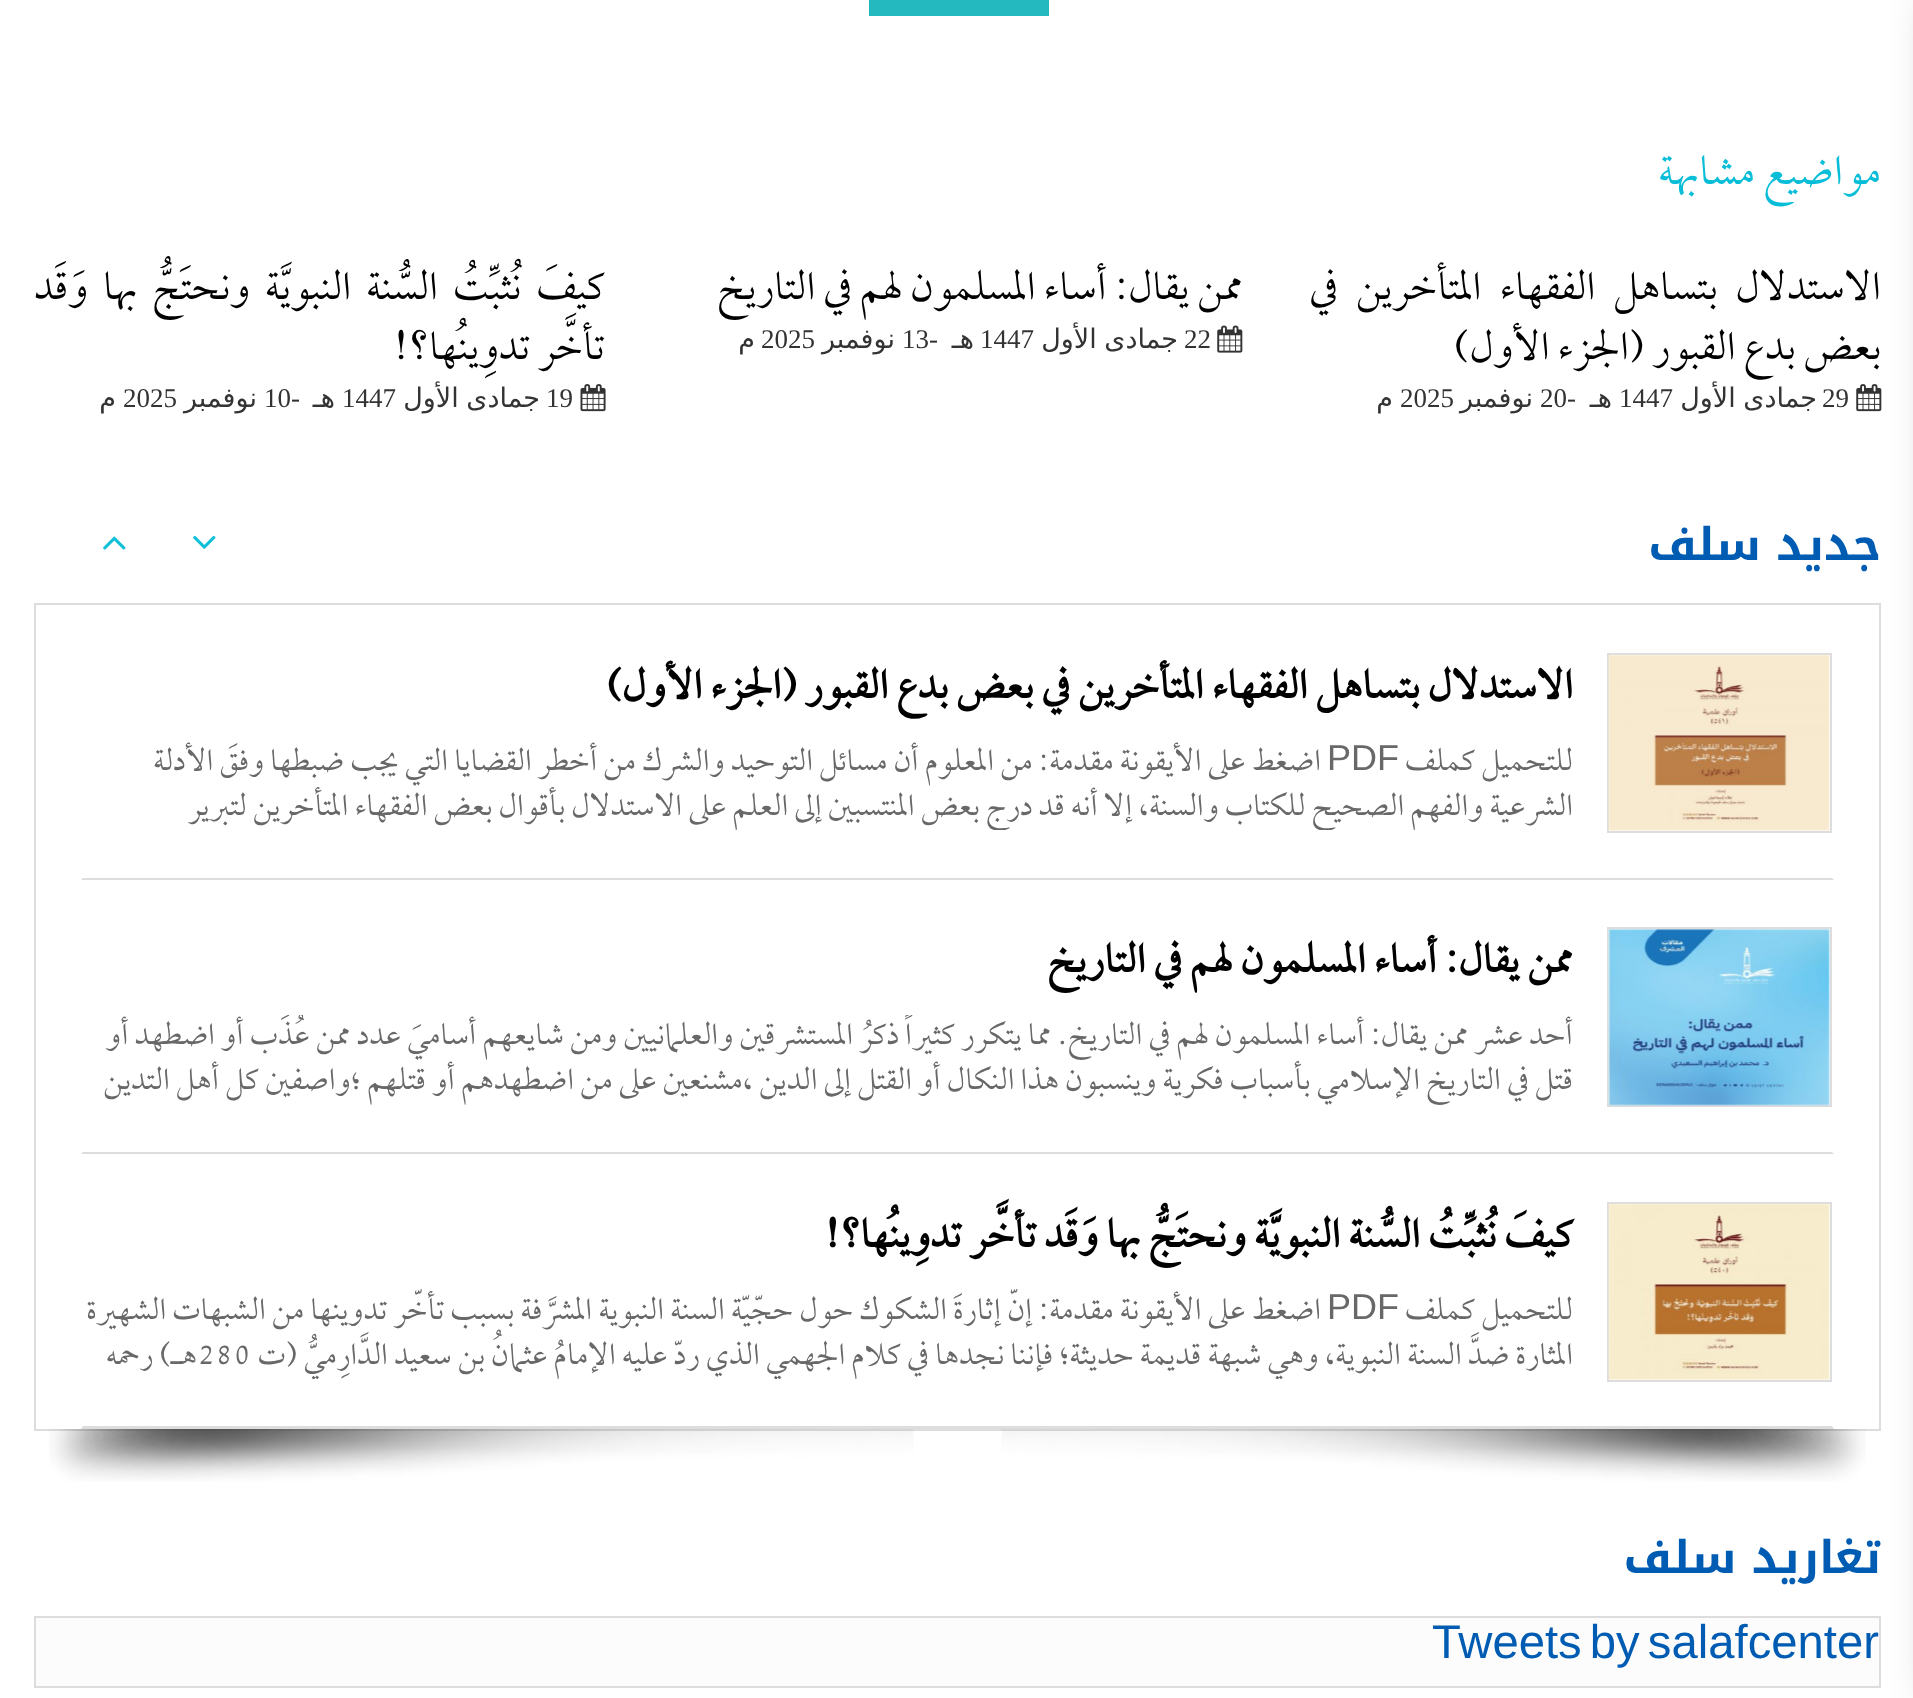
<svg xmlns="http://www.w3.org/2000/svg" width="1913" height="1698">
	<defs>
		<clipPath id="clip1"><rect x="83" y="740" width="1490" height="90" /></clipPath>
		<clipPath id="clip2"><rect x="83" y="1015" width="1490" height="90" /></clipPath>
		<clipPath id="clip3"><rect x="83" y="1289" width="1490" height="90" /></clipPath>
	</defs>
	<rect width="100%" height="100%" fill="#FFFFFF" />
	<image x="1856" y="384" width="26" height="28" href="assets/img1.png" />
	<rect x="35" y="604" width="1845" height="826" fill="none" stroke="#DDDDDD" stroke-width="2" />
	<rect x="35" y="1617" width="1845" height="70" fill="#FCFCFC" stroke="#DDDDDD" stroke-width="2" />
	<rect x="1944" y="0" width="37" height="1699" fill="#211717" fill-opacity="0.68" filter="blur(22.5px)" />
	<rect x="869" y="0" width="180" height="16" fill="#24B9BF" />
	<text x="1881" y="184" font-family="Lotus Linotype" font-size="49.5" font-weight="300" direction="rtl" fill="#07BDD7">مواضيع مشابهة</text>
	<g font-family="Lotus Linotype" font-size="47.25" font-weight="300" direction="rtl" fill="#000000">
		<text x="1881" y="299" word-spacing="10">الاستدلال بتساهل الفقهاء المتأخرين في</text>
		<text x="1881" y="359">بعض بدع القبور (الجزء الأول)</text>
	</g>
	<text x="1822" y="407" font-family="Liberation Serif" font-size="27" fill="#333333">29</text>
	<text x="1817" y="407" word-spacing="-1" font-family="DejaVu Sans" font-size="27" direction="rtl" fill="#333333">جمادى الأول</text>
	<text x="1619" y="407" font-family="Liberation Serif" font-size="27" fill="#333333">1447</text>
	<text x="1612" y="407" font-family="DejaVu Sans" font-size="27" direction="rtl" fill="#333333">هـ</text>
	<text x="1540" y="407" font-family="Liberation Serif" font-size="27" fill="#333333">20-</text>
	<text x="1533" y="407" font-family="DejaVu Sans" font-size="27" direction="rtl" fill="#333333">نوفمبر</text>
	<text x="1400" y="407" font-family="Liberation Serif" font-size="27" fill="#333333">2025</text>
	<text x="1393" y="407" font-family="DejaVu Sans" font-size="27" direction="rtl" fill="#333333">م</text>
	<text x="1243" y="299" font-family="Lotus Linotype" font-size="47.25" font-weight="300" direction="rtl" fill="#000000">ممن يقال: أساء المسلمون لهم في التاريخ</text>
	<image x="1217" y="325" width="26" height="28" href="assets/img2.png" />
	<text x="1184" y="348" font-family="Liberation Serif" font-size="27" fill="#333333">22</text>
	<text x="1178" y="348" word-spacing="-1" font-family="DejaVu Sans" font-size="27" direction="rtl" fill="#333333">جمادى الأول</text>
	<text x="980" y="348" font-family="Liberation Serif" font-size="27" fill="#333333">1447</text>
	<text x="974" y="348" font-family="DejaVu Sans" font-size="27" direction="rtl" fill="#333333">هـ</text>
	<text x="902" y="348" font-family="Liberation Serif" font-size="27" fill="#333333">13-</text>
	<text x="895" y="348" font-family="DejaVu Sans" font-size="27" direction="rtl" fill="#333333">نوفمبر</text>
	<text x="761" y="348" font-family="Liberation Serif" font-size="27" fill="#333333">2025</text>
	<text x="755" y="348" font-family="DejaVu Sans" font-size="27" direction="rtl" fill="#333333">م</text>
	<g font-family="Lotus Linotype" font-size="47.25" font-weight="300" direction="rtl" fill="#000000">
		<text x="605" y="299" word-spacing="7">كيفَ نُثبِّتُ السُّنة النبويَّة ونحتَجُّ بها وَقَد</text>
		<text x="605" y="359">تأخَّر تدوِينُها؟!</text>
	</g>
	<image x="580" y="384" width="26" height="28" href="assets/img3.png" />
	<text x="546" y="407" font-family="Liberation Serif" font-size="27" fill="#333333">19</text>
	<text x="540" y="407" word-spacing="-1" font-family="DejaVu Sans" font-size="27" direction="rtl" fill="#333333">جمادى الأول</text>
	<text x="342" y="407" font-family="Liberation Serif" font-size="27" fill="#333333">1447</text>
	<text x="335" y="407" font-family="DejaVu Sans" font-size="27" direction="rtl" fill="#333333">هـ</text>
	<text x="264" y="407" font-family="Liberation Serif" font-size="27" fill="#333333">10-</text>
	<text x="257" y="407" font-family="DejaVu Sans" font-size="27" direction="rtl" fill="#333333">نوفمبر</text>
	<text x="123" y="407" font-family="Liberation Serif" font-size="27" fill="#333333">2025</text>
	<text x="116" y="407" font-family="DejaVu Sans" font-size="27" direction="rtl" fill="#333333">م</text>
	<text x="1881" y="560" font-family="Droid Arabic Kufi" font-size="45" font-weight="700" direction="rtl" fill="#005CB2">جديد سلف</text>
	<image x="193" y="535" width="23" height="14" href="assets/img4.png" />
	<image x="103" y="536" width="23" height="14" href="assets/img5.png" />
	<path d="M1834 880H81L83 878H1832Z" fill="#DDDDDD" />
	<rect x="1608" y="654" width="223" height="178" fill="none" stroke="#DDDDDD" stroke-width="2" />
	<image x="1608" y="654" width="222" height="177" href="assets/img6.png" />
	<text x="1573" y="698" font-family="Lotus Linotype" font-size="47.25" font-weight="700" direction="rtl" fill="#000000">الاستدلال بتساهل الفقهاء المتأخرين في بعض بدع القبور (الجزء الأول)</text>
	<text x="1573" y="770" font-family="Lotus Linotype" font-size="36" font-weight="300" direction="rtl" fill="#686868">للتحميل كملف</text>
	<text x="1327" y="770" font-family="Liberation Sans" font-size="36" fill="#686868">PDF</text>
	<text x="1321" y="770" font-family="Lotus Linotype" font-size="36" font-weight="300" direction="rtl" fill="#686868">اضغط على الأيقونة مقدمة: من المعلوم أن مسائل التوحيد والشرك من أخطر القضايا التي يجب ضبطها وفقَ الأدلة</text>
	<g clip-path="url(#clip1)">
		<text x="1573" y="815" font-family="Lotus Linotype" font-size="36" font-weight="300" direction="rtl" fill="#686868">الشرعية والفهم الصحيح للكتاب والسنة، إلا أنه قد درج بعض المنتسبين إلى العلم على الاستدلال بأقوال بعض الفقهاء المتأخرين لتبرير</text>
	</g>
	<path d="M1834 1154H81L83 1152H1832Z" fill="#DDDDDD" />
	<rect x="1608" y="928" width="223" height="178" fill="none" stroke="#DDDDDD" stroke-width="2" />
	<image x="1608" y="929" width="222" height="177" href="assets/img7.png" />
	<text x="1573" y="972" font-family="Lotus Linotype" font-size="47.25" font-weight="700" direction="rtl" fill="#000000">ممن يقال: أساء المسلمون لهم في التاريخ</text>
	<g clip-path="url(#clip2)">
		<text x="1573" y="1044" font-family="Lotus Linotype" font-size="36" font-weight="300" direction="rtl" fill="#686868">أحد عشر ممن يقال: أساء المسلمون لهم في التاريخ. مما يتكرر كثيراً ذكرُ المستشرقين والعلمانيين ومن شايعهم أساميَ عدد ممن عُذِّب أو اضطهد أو</text>
	</g>
	<text x="1573" y="1089" font-family="Lotus Linotype" font-size="36" font-weight="300" direction="rtl" fill="#686868">قتل في التاريخ الإسلامي بأسباب فكرية وينسبون هذا النكال أو القتل إلى الدين ،مشنعين على من اضطهدهم أو قتلهم ؛واصفين كل أهل التدين</text>
	<path d="M1834 1429H81L83 1426H1832Z" fill="#DDDDDD" />
	<rect x="1608" y="1203" width="223" height="178" fill="none" stroke="#DDDDDD" stroke-width="2" />
	<image x="1608" y="1203" width="222" height="177" href="assets/img8.png" />
	<text x="1573" y="1247" font-family="Lotus Linotype" font-size="47.25" font-weight="700" direction="rtl" fill="#000000">كيفَ نُثبِّتُ السُّنة النبويَّة ونحتَجُّ بها وَقَد تأخَّر تدوِينُها؟!</text>
	<text x="1573" y="1319" font-family="Lotus Linotype" font-size="36" font-weight="300" direction="rtl" fill="#686868">للتحميل كملف</text>
	<text x="1327" y="1319" font-family="Liberation Sans" font-size="36" fill="#686868">PDF</text>
	<g clip-path="url(#clip3)">
		<g font-family="Lotus Linotype" font-size="36" font-weight="300" direction="rtl" fill="#686868">
			<text x="1321" y="1319">اضغط على الأيقونة مقدمة: إنَّ إثارةَ الشكوك حول حجّيّة السنة النبوية المشرَّفة بسبب تأخُّر تدوينها من الشبهات الشهيرة</text>
			<text x="1573" y="1364">المثارة ضدَّ السنة النبوية، وهي شبهة قديمة حديثة؛ فإننا نجدها في كلام الجهمي الذي ردّ عليه الإمامُ عثمانُ بن سعيد الدَّارِميُّ (ت</text>
		</g>
	</g>
	<text x="197" y="1364" font-family="Lotus Linotype" font-size="36" font-weight="300" fill="#686868">280</text>
	<text x="197" y="1364" font-family="Lotus Linotype" font-size="36" font-weight="300" direction="rtl" fill="#686868">هـ) رحمه</text>
	<image x="1001" y="1429" width="865" height="53" href="assets/img9.png" />
	<image x="49" y="1429" width="865" height="53" href="assets/img10.png" />
	<text x="1881" y="1573" font-family="Droid Arabic Kufi" font-size="45" font-weight="700" direction="rtl" fill="#005CB2">تغاريد سلف</text>
	<text x="1432" y="1658" word-spacing="-5" font-family="Liberation Sans" font-size="47.25" fill="#005CB2">Tweets by salafcenter</text>
</svg>
